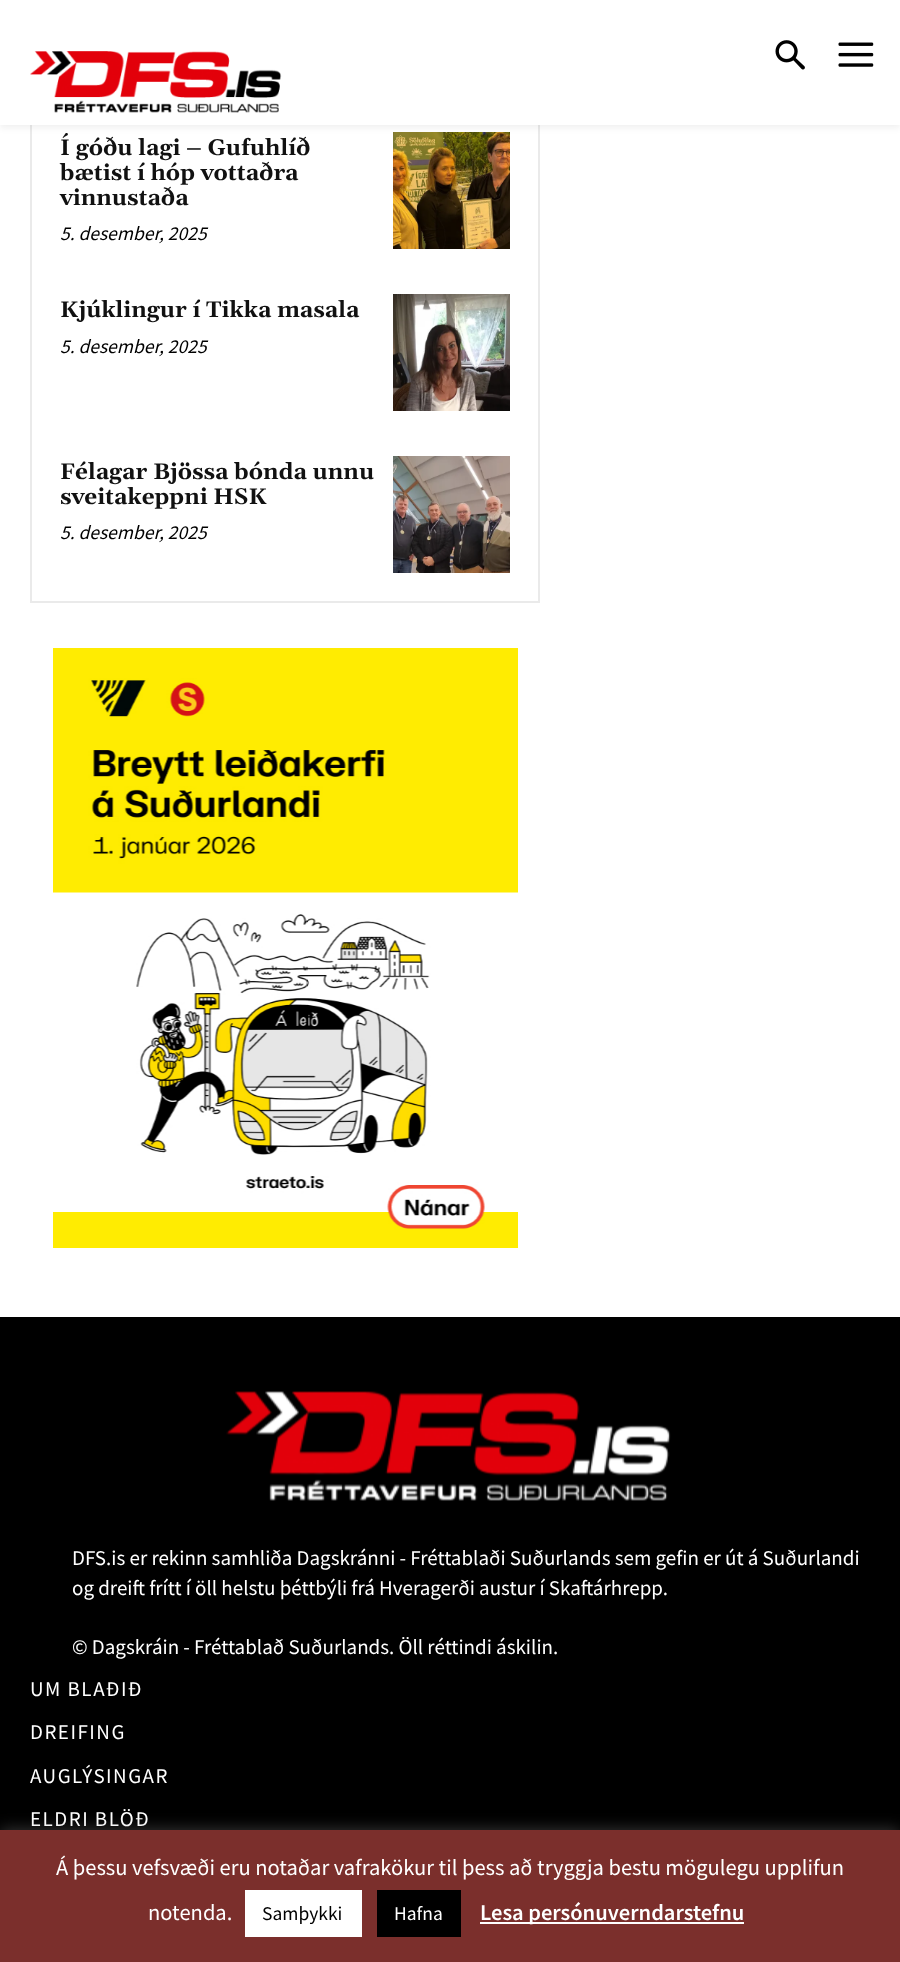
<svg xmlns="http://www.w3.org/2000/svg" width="900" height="1962">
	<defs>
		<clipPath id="clip1"><path d="M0 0H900V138H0ZM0 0H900V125H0Z" clip-rule="evenodd" /></clipPath>
	</defs>
	<rect width="100%" height="100%" fill="#FFFFFF" />
	<rect x="31" y="-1" width="508" height="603" fill="none" stroke="#EAEAEA" stroke-width="2" />
	<rect x="30" y="0" width="510" height="125" fill="#FFFFFF" />
	<image x="30" y="51" width="252" height="62" href="assets/img1.png" />
	<image x="775" y="40" width="30" height="30" href="assets/img2.png" />
	<image x="838" y="42" width="36" height="25" href="assets/img3.png" />
	<image x="393" y="132" width="117" height="117" href="assets/img4.png" />
	<g clip-path="url(#clip1)">
		<rect x="0" y="3" width="900" height="125" fill="#000000" fill-opacity="0.06" filter="blur(3px)" />
	</g>
	<g font-family="Gelasio" font-size="22.5" font-weight="700" fill="#111111">
		<text x="60" y="155">Í góðu lagi – Gufuhlíð</text>
		<text x="60" y="180">bætist í hóp vottaðra</text>
		<text x="60" y="205">vinnustaða</text>
	</g>
	<text x="60" y="240" font-family="Source Sans Pro" font-size="19.5" font-style="italic" fill="#000000">5. desember, 2025</text>
	<text x="60" y="317" font-family="Gelasio" font-size="22.5" font-weight="700" fill="#111111">Kjúklingur í Tikka masala</text>
	<text x="60" y="353" font-family="Source Sans Pro" font-size="19.5" font-style="italic" fill="#000000">5. desember, 2025</text>
	<image x="393" y="294" width="117" height="117" href="assets/img5.png" />
	<g font-family="Gelasio" font-size="22.5" font-weight="700" fill="#111111">
		<text x="60" y="479">Félagar Bjössa bónda unnu</text>
		<text x="60" y="504">sveitakeppni HSK</text>
	</g>
	<text x="60" y="539" font-family="Source Sans Pro" font-size="19.5" font-style="italic" fill="#000000">5. desember, 2025</text>
	<image x="393" y="456" width="117" height="117" href="assets/img6.png" />
	<image x="53" y="648" width="465" height="600" href="assets/img7.png" />
	<rect x="0" y="1317" width="900" height="513" fill="#000000" />
	<image x="226" y="1391" width="445" height="110" href="assets/img8.png" />
	<g font-family="Source Sans Pro" font-size="21" fill="#FFFFFF">
		<text x="72" y="1565">DFS.is er rekinn samhliða Dagskránni - Fréttablaði Suðurlands sem gefin er út á Suðurlandi</text>
		<text x="72" y="1595">og dreift frítt í öll helstu þéttbýli frá Hveragerði austur í Skaftárhrepp.</text>
		<text x="72" y="1654">© Dagskráin - Fréttablað Suðurlands. Öll réttindi áskilin.</text>
	</g>
	<g font-family="Source Sans Pro" font-size="21" letter-spacing="1.5" fill="#FFFFFF">
		<text x="30" y="1696">UM BLAÐIÐ</text>
		<text x="30" y="1739">DREIFING</text>
		<text x="30" y="1783">AUGLÝSINGAR</text>
		<text x="30" y="1826">ELDRI BLÖÐ</text>
	</g>
	<rect x="0" y="1829" width="900" height="132" fill="#ACABAB" fill-opacity="0.3" filter="blur(7.5px)" />
	<rect x="0" y="1830" width="900" height="132" fill="#7B2F2C" />
	<g font-family="Source Sans Pro" font-size="22.5" fill="#FFFFFF">
		<text x="56" y="1875">Á þessu vefsvæði eru notaðar vafrakökur til þess að tryggja bestu mögulegu upplifun</text>
		<text x="148" y="1920">notenda.</text>
	</g>
	<rect x="245" y="1890" width="117" height="47" fill="#FFFFFF" />
	<text x="262" y="1920" font-family="Source Sans Pro" font-size="19.5" fill="#000000">Samþykki</text>
	<rect x="377" y="1890" width="84" height="47" fill="#000000" />
	<text x="394" y="1920" font-family="Source Sans Pro" font-size="19.5" fill="#FFFFFF">Hafna</text>
	<rect x="480" y="1922" width="264" height="2" fill="#FFFFFF" />
	<text x="480" y="1920" font-family="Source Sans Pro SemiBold" font-size="22.5" font-weight="600" fill="#FFFFFF">Lesa persónuverndarstefnu</text>
</svg>
